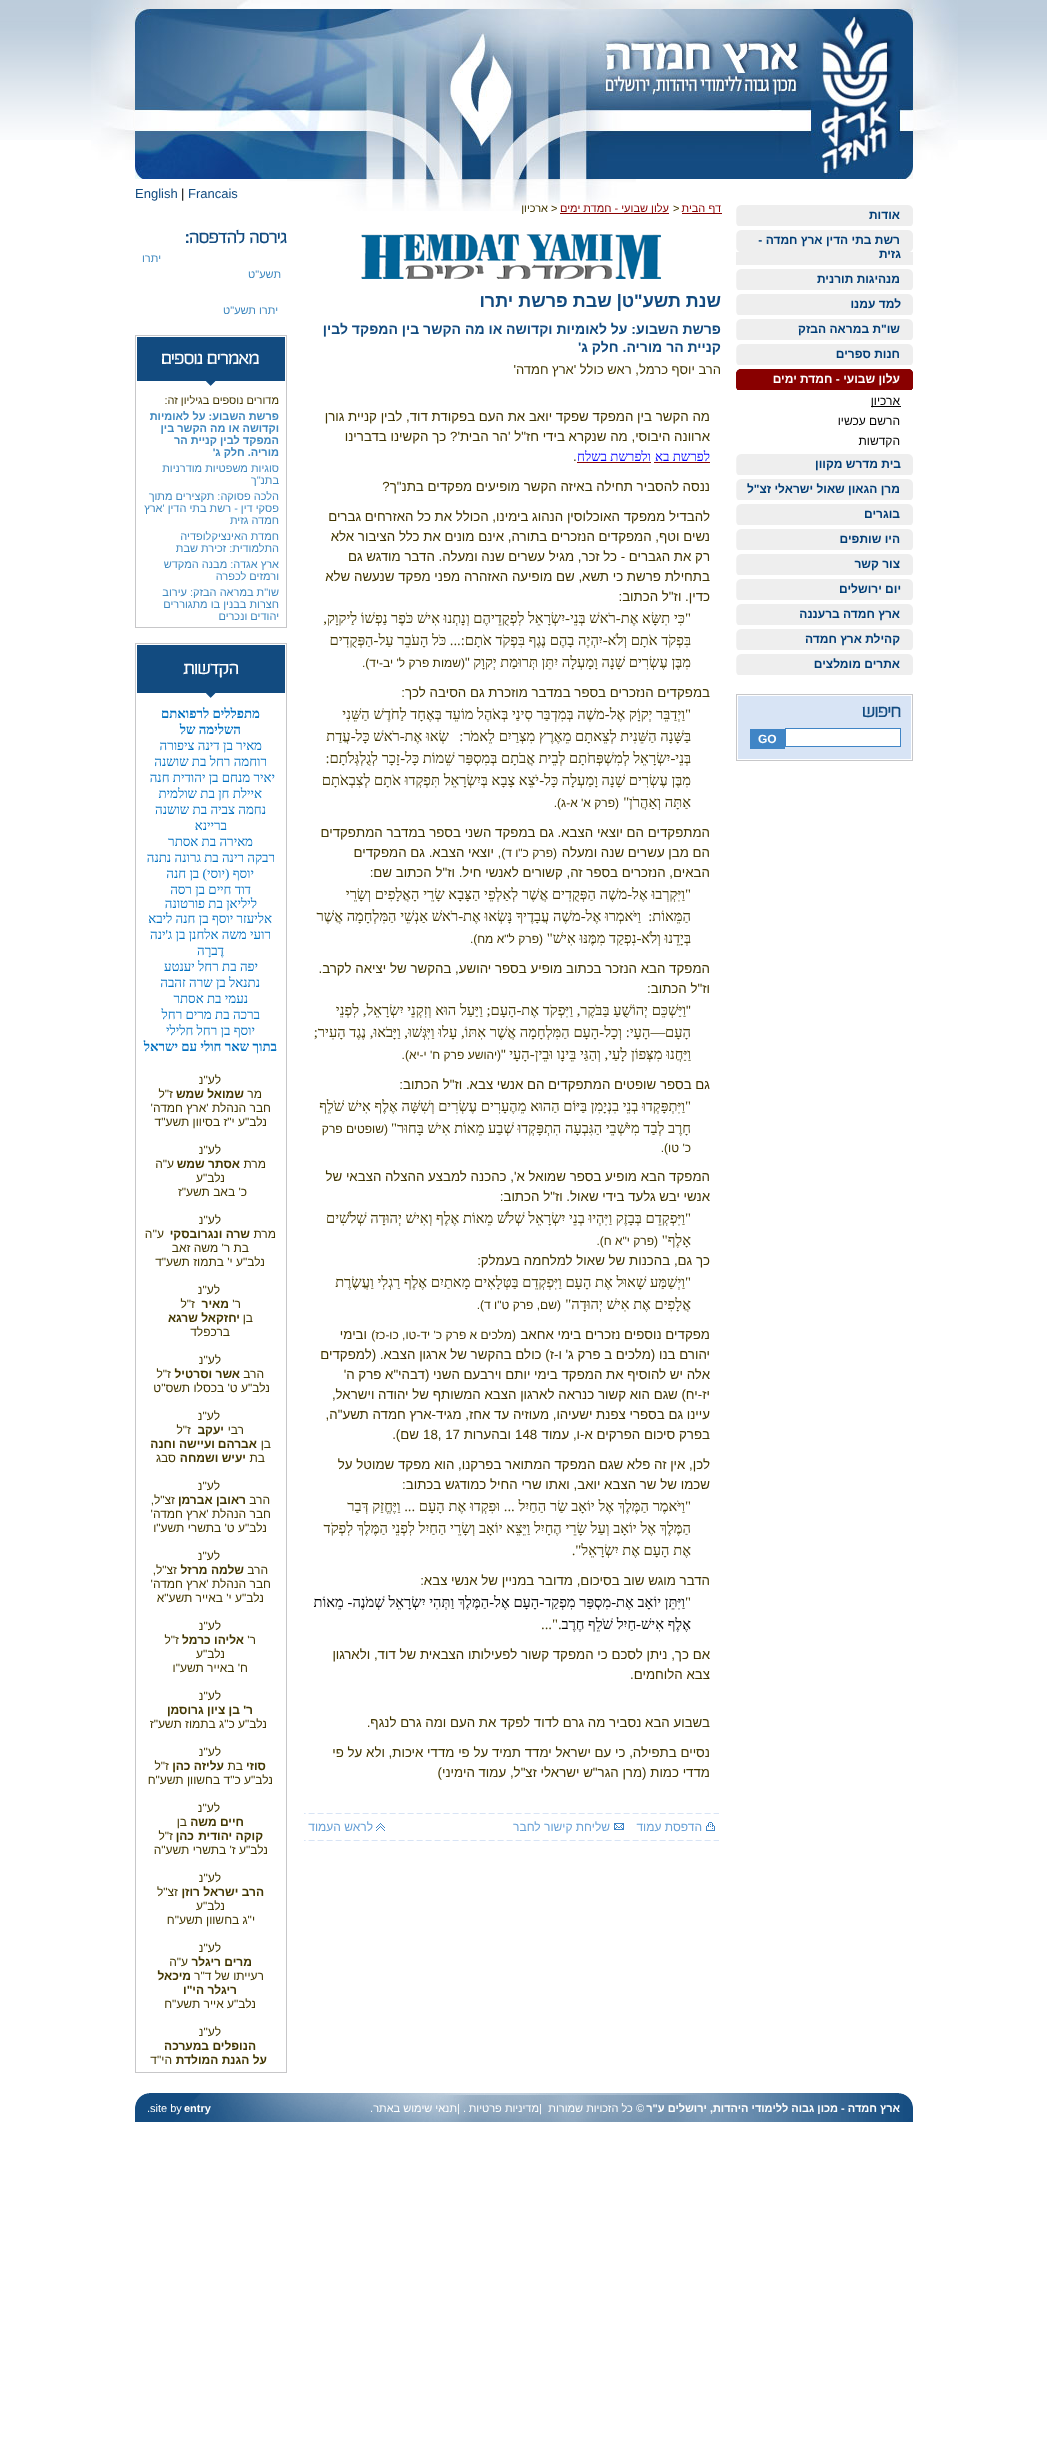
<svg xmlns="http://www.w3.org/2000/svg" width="1047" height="2458">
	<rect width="100%" height="100%" fill="#FFFFFF" />
	<image x="0" y="0" width="1047" height="140" href="assets/img1.png" />
	<image x="91" y="0" width="867" height="160" href="assets/img2.png" />
	<text x="188" y="198" font-family="Liberation Sans" font-size="13" fill="#124B80">Francais</text>
	<text x="181" y="198" font-family="Liberation Sans" font-size="13" fill="#000000">|</text>
	<text x="135" y="198" font-family="Liberation Sans" font-size="13" fill="#124B80">English</text>
	<image x="135" y="9" width="778" height="170" href="assets/img3.png" />
	<image x="736" y="205" width="177" height="21" href="assets/img4.png" />
	<text x="900" y="219" font-family="Liberation Sans" font-size="12" font-weight="700" direction="rtl" fill="#003D76">אודות</text>
	<rect x="736" y="252" width="177" height="13" fill="#EEEEEE" />
	<image x="736" y="230" width="177" height="22" href="assets/img5.png" />
	<g font-family="Liberation Sans" font-size="12" font-weight="700" direction="rtl" fill="#003D76">
		<text x="900" y="244">רשת בתי הדין ארץ חמדה -</text>
		<text x="901" y="258">גזית</text>
	</g>
	<image x="736" y="269" width="177" height="21" href="assets/img4.png" />
	<text x="900" y="283" font-family="Liberation Sans" font-size="12" font-weight="700" direction="rtl" fill="#003D76">מנהיגות תורנית</text>
	<image x="736" y="294" width="177" height="21" href="assets/img4.png" />
	<text x="901" y="308" font-family="Liberation Sans" font-size="12" font-weight="700" direction="rtl" fill="#003D76">למד עמנו</text>
	<image x="736" y="319" width="177" height="21" href="assets/img4.png" />
	<text x="900" y="333" font-family="Liberation Sans" font-size="12" font-weight="700" direction="rtl" fill="#003D76">שו"ת במראה הבזק</text>
	<image x="736" y="344" width="177" height="21" href="assets/img4.png" />
	<text x="900" y="358" font-family="Liberation Sans" font-size="12" font-weight="700" direction="rtl" fill="#003D76">חנות ספרים</text>
	<image x="736" y="369" width="177" height="21" href="assets/img6.png" />
	<text x="900" y="383" font-family="Liberation Sans" font-size="12" font-weight="700" direction="rtl" fill="#FFFFFF">עלון שבועי - חמדת ימים</text>
	<rect x="871" y="406" width="30" height="1" fill="#000000" />
	<g font-family="Liberation Sans" font-size="12" direction="rtl" fill="#000000">
		<text x="900" y="405">ארכיון</text>
		<text x="900" y="425">הרשם עכשיו</text>
		<text x="900" y="445">הקדשות</text>
	</g>
	<image x="736" y="454" width="177" height="21" href="assets/img4.png" />
	<text x="901" y="468" font-family="Liberation Sans" font-size="12" font-weight="700" direction="rtl" fill="#003D76">בית מדרש מקוון</text>
	<image x="736" y="479" width="177" height="21" href="assets/img4.png" />
	<text x="900" y="493" font-family="Liberation Sans" font-size="12" font-weight="700" direction="rtl" fill="#003D76">מרן הגאון שאול ישראלי זצ"ל</text>
	<image x="736" y="504" width="177" height="21" href="assets/img4.png" />
	<text x="900" y="518" font-family="Liberation Sans" font-size="12" font-weight="700" direction="rtl" fill="#003D76">בוגרים</text>
	<image x="736" y="529" width="177" height="21" href="assets/img4.png" />
	<text x="900" y="543" font-family="Liberation Sans" font-size="12" font-weight="700" direction="rtl" fill="#003D76">היו שותפים</text>
	<image x="736" y="554" width="177" height="21" href="assets/img4.png" />
	<text x="900" y="568" font-family="Liberation Sans" font-size="12" font-weight="700" direction="rtl" fill="#003D76">צור קשר</text>
	<image x="736" y="579" width="177" height="21" href="assets/img4.png" />
	<text x="901" y="593" font-family="Liberation Sans" font-size="12" font-weight="700" direction="rtl" fill="#003D76">יום ירושלים</text>
	<image x="736" y="604" width="177" height="21" href="assets/img4.png" />
	<text x="900" y="618" font-family="Liberation Sans" font-size="12" font-weight="700" direction="rtl" fill="#003D76">ארץ חמדה ברעננה</text>
	<image x="736" y="629" width="177" height="21" href="assets/img4.png" />
	<text x="900" y="643" font-family="Liberation Sans" font-size="12" font-weight="700" direction="rtl" fill="#003D76">קהילת ארץ חמדה</text>
	<image x="736" y="654" width="177" height="21" href="assets/img4.png" />
	<text x="900" y="668" font-family="Liberation Sans" font-size="12" font-weight="700" direction="rtl" fill="#003D76">אתרים מומלצים</text>
	<rect x="736.5" y="694.5" width="176" height="66" fill="none" stroke="#C7C7C9" />
	<rect x="738" y="696" width="173" height="63" fill="#D8E4F5" />
	<image x="862" y="706" width="39" height="12" href="assets/img7.png" />
	<rect x="785.5" y="728.5" width="115" height="18" fill="#FFFFFF" stroke="#4085C6" />
	<rect x="750" y="729" width="35" height="20" fill="#4085C6" />
	<text x="758" y="743" font-family="Liberation Sans" font-size="12" font-weight="700" fill="#FFFFFF">GO</text>
	<image x="287" y="179" width="349" height="32" href="assets/img8.png" />
	<rect x="682" y="213" width="40" height="1" fill="#890000" />
	<text x="721" y="212" font-family="Liberation Sans" font-size="11" direction="rtl" fill="#890000">דף הבית</text>
	<text x="673" y="212" font-family="Liberation Sans" font-size="11" fill="#433701">&gt;</text>
	<rect x="560" y="213" width="109" height="1" fill="#890000" />
	<text x="669" y="212" font-family="Liberation Sans" font-size="11" direction="rtl" fill="#890000">עלון שבועי - חמדת ימים</text>
	<text x="551" y="212" font-family="Liberation Sans" font-size="11" fill="#433701">&gt;</text>
	<text x="548" y="212" font-family="Liberation Sans" font-size="11" direction="rtl" fill="#433701">ארכיון</text>
	<image x="361" y="234" width="300" height="45" href="assets/img9.png" />
	<text x="721" y="307" font-family="Liberation Sans" font-size="18" font-weight="700" direction="rtl" fill="#124B80">שנת תשע"ט| שבת פרשת יתרו</text>
	<g font-family="Liberation Sans" font-size="14" font-weight="700" direction="rtl" fill="#124B80">
		<text x="721" y="334">פרשת השבוע: על לאומיות וקדושה או מה הקשר בין המפקד לבין</text>
		<text x="721" y="352">קניית הר מוריה. חלק ג'</text>
	</g>
	<text x="721" y="374" font-family="Liberation Sans" font-size="13" direction="rtl" fill="#433701">הרב יוסף כרמל, ראש כולל 'ארץ חמדה'</text>
	<g font-family="Liberation Sans" font-size="13.3" direction="rtl" fill="#433701">
		<text x="710" y="421">מה הקשר בין המפקד שפקד יואב את העם בפקודת דוד, לבין קניית גורן</text>
		<text x="710" y="441">ארוונה היבוסי, מה שנקרא בידי חז"ל 'הר הבית'? כך הקשינו בדברינו</text>
	</g>
	<text x="710" y="461" font-family="Liberation Serif" font-size="13.3" direction="rtl" fill="#0000FF">לפרשת בא</text>
	<rect x="654" y="462" width="56" height="1" fill="#890000" />
	<text x="651" y="461" font-family="Liberation Serif" font-size="13.3" direction="rtl" fill="#0000FF">ולפרשת בשלח</text>
	<rect x="577" y="462" width="74" height="1" fill="#890000" />
	<text x="573" y="461" font-family="Liberation Sans" font-size="13.3" fill="#433701">.</text>
	<g font-family="Liberation Sans" font-size="13.3" direction="rtl" fill="#433701">
		<text x="710" y="491">ננסה להסביר תחילה באיזה הקשר מופיעים מפקדים בתנ"ך?</text>
		<text x="710" y="521">להבדיל ממפקד האוכלוסין הנהוג בימינו, הכולל את כל האזרחים גברים</text>
		<text x="710" y="541">נשים וטף, המפקדים הנזכרים בתורה, אינם מונים את כלל הציבור אלא</text>
		<text x="710" y="561">רק את הגברים - כל זכר, מגיל עשרים שנה ומעלה. הדבר מודגש גם</text>
		<text x="710" y="581">בתחילת פרשת כי תשא, שם מופיעה האזהרה מפני מפקד שנעשה שלא</text>
		<text x="710" y="601">כדין. וז"ל הכתוב:</text>
	</g>
	<g font-family="Liberation Serif" font-size="14.7" direction="rtl" fill="#433701">
		<text x="691" y="623">"כִּי תִשָּׂא אֶת-רֹאשׁ בְּנֵי-יִשְׂרָאֵל לִפְקֻדֵיהֶם וְנָתְנוּ אִישׁ כֹּפֶר נַפְשׁוֹ לַיקוָק,</text>
		<text x="691" y="645">בִּפְקֹד אֹתָם וְלֹא-יִהְיֶה בָהֶם נֶגֶף בִּפְקֹד אֹתָם:... כֹּל הָעֹבֵר עַל-הַפְּקֻדִים</text>
		<text x="691" y="667">מִבֶּן עֶשְׂרִים שָׁנָה וָמָעְלָה יִתֵּן תְּרוּמַת יְקוָק</text>
	</g>
	<text x="465" y="667" font-family="Liberation Sans" font-size="13.3" fill="#433701">"</text>
	<text x="465" y="667" font-family="Liberation Sans" font-size="12" direction="rtl" fill="#433701">(שמות פרק ל' יב-יד).</text>
	<text x="710" y="697" font-family="Liberation Sans" font-size="13.3" direction="rtl" fill="#433701">במפקדים הנזכרים בספר במדבר מוזכרת גם הסיבה לכך:</text>
	<g font-family="Liberation Serif" font-size="14.7" direction="rtl" fill="#433701">
		<text x="691" y="719">"וַיְדַבֵּר יְקוָֹק אֶל-משֶׁה בְּמִדְבַּר סִינַי בְּאֹהֶל מוֹעֵד בְּאֶחָד לַחֹדֶשׁ הַשֵּׁנִי</text>
		<text x="691" y="741">בַּשָּׁנָה הַשֵּׁנִית לְצֵאתָם מֵאֶרֶץ מִצְרַיִם לֵאמֹר:</text>
		<text x="449" y="741">שְׂאוּ אֶת-רֹאשׁ כָּל-עֲדַת</text>
		<text x="691" y="763">בְּנֵי-יִשְׂרָאֵל לְמִשְׁפְּחֹתָם לְבֵית אֲבֹתָם בְּמִסְפַּר שֵׁמוֹת כָּל-זָכָר לְגֻלְגְּלֹתָם:</text>
		<text x="691" y="785">מִבֶּן עֶשְׂרִים שָׁנָה וָמַעְלָה כָּל-יֹצֵא צָבָא בְּיִשְׂרָאֵל תִּפְקְדוּ אֹתָם לְצִבְאֹתָם</text>
		<text x="691" y="807">אַתָּה וְאַהֲרֹן"</text>
	</g>
	<text x="619" y="807" font-family="Liberation Sans" font-size="12" direction="rtl" fill="#433701">(פרק א' א-ג).</text>
	<g font-family="Liberation Sans" font-size="13.3" direction="rtl" fill="#433701">
		<text x="710" y="837">המתפקדים הם יוצאי הצבא. גם במפקד השני בספר במדבר המתפקדים</text>
		<text x="710" y="857">הם מבן עשרים שנה ומעלה</text>
	</g>
	<text x="557" y="857" font-family="Liberation Sans" font-size="12" direction="rtl" fill="#433701">(פרק כ"ו ד),</text>
	<g font-family="Liberation Sans" font-size="13.3" direction="rtl" fill="#433701">
		<text x="494" y="857">יוצאי הצבא. גם המפקדים</text>
		<text x="710" y="877">הבאים, הנזכרים בספר זה, קשורים לאנשי חיל. וז"ל הכתוב שם:</text>
	</g>
	<g font-family="Liberation Serif" font-size="14.7" direction="rtl" fill="#433701">
		<text x="691" y="899">"וַיִּקְרְבוּ אֶל-משֶׁה הַפְּקֻדִים אֲשֶׁר לְאַלְפֵי הַצָּבָא שָׂרֵי הָאֲלָפִים וְשָׂרֵי</text>
		<text x="691" y="921">הַמֵּאוֹת:</text>
		<text x="641" y="921">וַיֹּאמְרוּ אֶל-משֶׁה עֲבָדֶיךָ נָּשְׂאוּ אֶת-רֹאשׁ אַנְשֵׁי הַמִּלְחָמָה אֲשֶׁר</text>
		<text x="691" y="943">בְּיָדֵנוּ וְלֹא-נִפְקַד מִמֶּנּוּ אִישׁ"</text>
	</g>
	<text x="543" y="943" font-family="Liberation Sans" font-size="12" direction="rtl" fill="#433701">(פרק ל"א מח).</text>
	<g font-family="Liberation Sans" font-size="13.3" direction="rtl" fill="#433701">
		<text x="710" y="973">המפקד הבא הנזכר בכתוב מופיע בספר יהושע, בהקשר של יציאה לקרב.</text>
		<text x="710" y="993">וז"ל הכתוב:</text>
	</g>
	<text x="686" y="1015" font-family="Liberation Sans" font-size="13.3" fill="#433701">"</text>
	<g font-family="Liberation Serif" font-size="14.7" direction="rtl" fill="#433701">
		<text x="686" y="1015">וַיַּשְׁכֵּם יְהוֹשֻׁעַ בַּבֹּקֶר, וַיִּפְקֹד אֶת-הָעָם; וַיַּעַל הוּא וְזִקְנֵי יִשְׂרָאֵל, לִפְנֵי</text>
		<text x="691" y="1037">הָעָם—הָעָי: וְכָל-הָעָם הַמִּלְחָמָה אֲשֶׁר אִתּוֹ, עָלוּ וַיִּגְּשׁוּ, וַיָּבֹאוּ, נֶגֶד הָעִיר;</text>
		<text x="691" y="1059">וַיַּחֲנוּ מִצְּפוֹן לָעַי, וְהַגַּי בֵּינָו וּבֵין-הָעָי</text>
	</g>
	<text x="501" y="1059" font-family="Liberation Sans" font-size="13.3" fill="#433701">"</text>
	<text x="501" y="1059" font-family="Liberation Sans" font-size="12" direction="rtl" fill="#433701">(יהושע פרק ח' י-יא).</text>
	<text x="710" y="1089" font-family="Liberation Sans" font-size="13.3" direction="rtl" fill="#433701">גם בספר שופטים המתפקדים הם אנשי צבא. וז"ל הכתוב:</text>
	<g font-family="Liberation Serif" font-size="14.7" direction="rtl" fill="#433701">
		<text x="691" y="1111">"וַיִּתְפָּקְדוּ בְנֵי בִנְיָמִן בַּיּוֹם הַהוּא מֵהֶעָרִים עֶשְׂרִים וְשִׁשָּׁה אֶלֶף אִישׁ שֹׁלֵף</text>
		<text x="691" y="1133">חָרֶב לְבַד מִיֹּשְׁבֵי הַגִּבְעָה הִתְפָּקְדוּ שְׁבַע מֵאוֹת אִישׁ בָּחוּר"</text>
	</g>
	<g font-family="Liberation Sans" font-size="12" direction="rtl" fill="#433701">
		<text x="388" y="1133">(שופטים פרק</text>
		<text x="691" y="1152">כ' טו).</text>
	</g>
	<g font-family="Liberation Sans" font-size="13.3" direction="rtl" fill="#433701">
		<text x="710" y="1181">המפקד הבא מופיע בספר שמואל א', כהכנה למבצע ההצלה הצבאי של</text>
		<text x="710" y="1201">אנשי יבש גלעד בידי שאול. וז"ל הכתוב:</text>
	</g>
	<g font-family="Liberation Serif" font-size="14.7" direction="rtl" fill="#433701">
		<text x="691" y="1223">"וַיִּפְקְדֵם בְּבָזֶק וַיִּהְיוּ בְנֵי יִשְׂרָאֵל שְׁלֹשׁ מֵאוֹת אֶלֶף וְאִישׁ יְהוּדָה שְׁלֹשִׁים</text>
		<text x="691" y="1245">אָלֶף"</text>
	</g>
	<text x="658" y="1245" font-family="Liberation Sans" font-size="12" direction="rtl" fill="#433701">(פרק י"א ח).</text>
	<text x="710" y="1265" font-family="Liberation Sans" font-size="13.3" direction="rtl" fill="#433701">כך גם, בהכנות של שאול למלחמה בעמלק:</text>
	<g font-family="Liberation Serif" font-size="14.7" direction="rtl" fill="#433701">
		<text x="691" y="1287">"וַיְשַׁמַּע שָׁאוּל אֶת הָעָם וַיִּפְקְדֵם בַּטְּלָאִים מָאתַיִם אֶלֶף רַגְלִי וַעֲשֶׂרֶת</text>
		<text x="691" y="1309">אֲלָפִים אֶת אִישׁ יְהוּדָה"</text>
	</g>
	<text x="561" y="1309" font-family="Liberation Sans" font-size="12" direction="rtl" fill="#433701">(שם, פרק ט"ו ד).</text>
	<text x="710" y="1339" font-family="Liberation Sans" font-size="13.3" direction="rtl" fill="#433701">מפקדים נוספים נזכרים בימי אחאב</text>
	<text x="516" y="1339" font-family="Liberation Sans" font-size="12" direction="rtl" fill="#433701">(מלכים א פרק כ' יד-טו, כו-כז)</text>
	<g font-family="Liberation Sans" font-size="13.3" direction="rtl" fill="#433701">
		<text x="367" y="1339">ובימי</text>
		<text x="710" y="1359">יהורם בנו (מלכים ב פרק ג' ו-ז) כולם בהקשר של ארגון הצבא. (למפקדים</text>
		<text x="710" y="1379">אלה יש להוסיף את המפקד בימי יותם וירבעם השני (דבהי"א פרק ה'</text>
		<text x="710" y="1399">יז-יח) שגם הוא קשור כנראה לארגון הצבא המשותף של יהודה וישראל,</text>
		<text x="710" y="1419">עיינו גם בספרי צפנת ישעיהו, מעוזיה עד אחז, מגיד-ארץ חמדה תשע"ה,</text>
		<text x="710" y="1439">בפרק סיכום הפרקים א-ו, עמוד</text>
	</g>
	<text x="515" y="1439" font-family="Liberation Sans" font-size="13.3" fill="#433701">148</text>
	<text x="511" y="1439" font-family="Liberation Sans" font-size="13.3" direction="rtl" fill="#433701">ובהערות</text>
	<text x="423" y="1439" font-family="Liberation Sans" font-size="13.3" fill="#433701">18, 17</text>
	<g font-family="Liberation Sans" font-size="13.3" direction="rtl" fill="#433701">
		<text x="419" y="1439">שם).</text>
		<text x="710" y="1469">לכן, אין זה פלא שגם המפקד המתואר בפרקנו, הוא מפקד שמוטל על</text>
		<text x="710" y="1489">שכמו של שר הצבא יואב, ואתו שרי החיל כמודגש בכתוב:</text>
	</g>
	<g font-family="Liberation Serif" font-size="14.7" direction="rtl" fill="#433701">
		<text x="691" y="1511">"וַיֹּאמֶר הַמֶּלֶךְ אֶל יוֹאָב שַׂר הַחַיִל ... וּפִקְדוּ אֶת הָעָם ... וַיֶּחֱזַק דְּבַר</text>
		<text x="691" y="1533">הַמֶּלֶךְ אֶל יוֹאָב וְעַל שָׂרֵי הֶחָיִל וַיֵּצֵא יוֹאָב וְשָׂרֵי הַחַיִל לִפְנֵי הַמֶּלֶךְ לִפְקֹד</text>
		<text x="691" y="1555">אֶת הָעָם אֶת יִשְׂרָאֵל".</text>
	</g>
	<text x="710" y="1585" font-family="Liberation Sans" font-size="13.3" direction="rtl" fill="#433701">הדבר מוגש שוב בסיכום, מדובר במניין של אנשי צבא:</text>
	<text x="685" y="1607" font-family="Liberation Serif" font-size="14.7" fill="#433701">"</text>
	<g font-family="Liberation Serif" font-size="14.7" direction="rtl" fill="#000000">
		<text x="685" y="1607">וַיִּתֵּן יוֹאָב אֶת-מִסְפַּר מִפְקַד-הָעָם אֶל-הַמֶּלֶךְ וַתְּהִי יִשְׂרָאֵל שְׁמֹנֶה- מֵאוֹת</text>
		<text x="691" y="1629">אֶלֶף אִישׁ-חַיִל שֹׁלֵף חֶרֶב</text>
	</g>
	<text x="541" y="1629" font-family="Liberation Serif" font-size="14.7" fill="#433701">...".</text>
	<g font-family="Liberation Sans" font-size="13.3" direction="rtl" fill="#433701">
		<text x="710" y="1659">אם כך, ניתן לסכם כי המפקד קשור לפעילותו הצבאית של דוד, ולארגון</text>
		<text x="710" y="1679">צבא הלוחמים.</text>
		<text x="710" y="1727">בשבוע הבא נסביר מה גרם לדוד לפקד את העם ומה גרם לנגף.</text>
		<text x="710" y="1757">נסיים בתפילה, כי עם ישראל ימדד תמיד על פי מדדי איכות, ולא על פי</text>
		<text x="710" y="1777">מדדי כמות (מרן הגר"ש ישראלי זצ"ל, עמוד הימיני)</text>
	</g>
	<image x="304" y="1813" width="415" height="1" href="assets/img10.png" />
	<image x="706" y="1822" width="9" height="9" href="assets/img11.png" />
	<text x="702" y="1831" font-family="Liberation Sans" font-size="12" direction="rtl" fill="#67A0D6">הדפסת עמוד</text>
	<image x="614" y="1823" width="10" height="7" href="assets/img12.png" />
	<text x="610" y="1831" font-family="Liberation Sans" font-size="12" direction="rtl" fill="#67A0D6">שליחת קישור לחבר</text>
	<image x="376" y="1823" width="9" height="8" href="assets/img13.png" />
	<text x="373" y="1831" font-family="Liberation Sans" font-size="12" direction="rtl" fill="#67A0D6">לראש העמוד</text>
	<image x="304" y="1840" width="415" height="1" href="assets/img10.png" />
	<image x="186" y="229" width="101" height="15" href="assets/img14.png" />
	<g font-family="Liberation Sans" font-size="11" direction="rtl" fill="#3F88BF">
		<text x="161" y="262">יתרו</text>
		<text x="281" y="278">תשע"ט</text>
		<text x="278" y="314">יתרו תשע"ט</text>
	</g>
	<rect x="135.5" y="335.5" width="151" height="292" fill="none" stroke="#C7C7C9" />
	<rect x="137" y="337" width="148" height="44" fill="#124B80" />
	<image x="137" y="381" width="148" height="5" href="assets/img15.png" />
	<image x="162" y="353" width="97" height="12" href="assets/img16.png" />
	<text x="279" y="404" font-family="Liberation Sans" font-size="11" direction="rtl" fill="#433701">מדורים נוספים בגיליון זה:</text>
	<g font-family="Liberation Sans" font-size="11" font-weight="700" direction="rtl" fill="#3F88BF">
		<text x="279" y="420">פרשת השבוע: על לאומיות</text>
		<text x="279" y="432">וקדושה או מה הקשר בין</text>
		<text x="279" y="444">המפקד לבין קניית הר</text>
		<text x="279" y="456">מוריה. חלק ג'</text>
	</g>
	<g font-family="Liberation Sans" font-size="11" direction="rtl" fill="#3F88BF">
		<text x="279" y="472">סוגיות משפטיות מודרניות</text>
		<text x="279" y="484">בתנ"ך</text>
		<text x="279" y="500">הלכה פסוקה: תקצירים מתוך</text>
		<text x="279" y="512">פסקי דין - רשת בתי הדין 'ארץ</text>
		<text x="279" y="524">חמדה גזית</text>
		<text x="279" y="540">חמדת האינציקלופדיה</text>
		<text x="279" y="552">התלמודית: זכירת שבת</text>
		<text x="279" y="568">ארץ אגדה: מבנה המקדש</text>
		<text x="279" y="580">ורמזים לכפרה</text>
		<text x="279" y="596">שו"ת במראה הבזק: עירוב</text>
		<text x="279" y="608">חצרות בבנין בו מתגוררים</text>
		<text x="279" y="620">יהודים ונכרים</text>
	</g>
	<rect x="135.5" y="643.5" width="151" height="1429" fill="none" stroke="#C7C7C9" />
	<rect x="137" y="645" width="148" height="48" fill="#124B80" />
	<image x="137" y="693" width="148" height="5" href="assets/img15.png" />
	<image x="183" y="663" width="56" height="15" href="assets/img17.png" />
	<g font-family="Liberation Serif" font-size="13.3" font-weight="700" direction="rtl" fill="#0070C0">
		<text x="260" y="718">מתפללים לרפואתם</text>
		<text x="241" y="734">השלימה של</text>
	</g>
	<g font-family="Liberation Serif" font-size="13.3" direction="rtl" fill="#0070C0">
		<text x="262" y="750">מאיר בן דינה ציפורה</text>
		<text x="267" y="766">רוחמה רחל בת שושנה</text>
		<text x="275" y="782">יאיר מנחם בן יהודית חנה</text>
		<text x="262" y="798">איילת חן בת שולמית</text>
		<text x="266" y="814">נחמה צביה בת שושנה</text>
		<text x="227" y="830">בריינא</text>
		<text x="253" y="846">מאירה בת אסתר</text>
		<text x="275" y="862">רבקה רינה בת גרונה נתנה</text>
		<text x="254" y="878">יוסף (יוסי) בן חנה</text>
		<text x="251" y="894">דוד חיים בן רסה</text>
		<text x="257" y="908">ליליאן בת פורטונה</text>
		<text x="272" y="923">אליעזר יוסף בן חנה ליבא</text>
		<text x="271" y="939">רועי משה אלחנן בן ג'ינה</text>
		<text x="224" y="955">דֶברָה</text>
		<text x="258" y="971">יפה בת רחל יענטע</text>
		<text x="260" y="987">נתנאל בן שרה זהבה</text>
		<text x="248" y="1003">נעמי בת אסתר</text>
		<text x="260" y="1019">ברכה בת מרים רחל</text>
		<text x="255" y="1035">יוסף בן רחל חלילי</text>
	</g>
	<text x="277" y="1051" font-family="Liberation Serif" font-size="13.3" font-weight="700" direction="rtl" fill="#0070C0">בתוך שאר חולי עם ישראל</text>
	<g font-family="Liberation Sans" font-size="12" direction="rtl" fill="#433701">
		<text x="221" y="1084">לע"נ</text>
		<text x="262" y="1098">מר</text>
	</g>
	<text x="244" y="1098" font-family="Liberation Sans" font-size="12" font-weight="700" direction="rtl" fill="#433701">שמואל שמש</text>
	<g font-family="Liberation Sans" font-size="12" direction="rtl" fill="#433701">
		<text x="173" y="1098">ז"ל</text>
		<text x="271" y="1112">חבר הנהלת 'ארץ חמדה'</text>
		<text x="267" y="1126">נלב"ע י"ז בסיוון תשע"ד</text>
		<text x="221" y="1154">לע"נ</text>
		<text x="266" y="1168">מרת</text>
	</g>
	<text x="240" y="1168" font-family="Liberation Sans" font-size="12" font-weight="700" direction="rtl" fill="#433701">אסתר שמש</text>
	<g font-family="Liberation Sans" font-size="12" direction="rtl" fill="#433701">
		<text x="174" y="1168">ע"ה</text>
		<text x="225" y="1182">נלב"ע</text>
		<text x="247" y="1196">כ' באב תשע"ז</text>
		<text x="221" y="1224">לע"נ</text>
		<text x="276" y="1238">מרת</text>
	</g>
	<text x="250" y="1238" font-family="Liberation Sans" font-size="12" font-weight="700" direction="rtl" fill="#433701">שרה ונגרובסקי</text>
	<g font-family="Liberation Sans" font-size="12" direction="rtl" fill="#433701">
		<text x="164" y="1238">ע''ה</text>
		<text x="249" y="1252">בת ר' משה זאב</text>
		<text x="265" y="1266">נלב"ע י' בתמוז תשע"ד</text>
		<text x="220" y="1294">לע"נ</text>
		<text x="241" y="1308">ר'</text>
	</g>
	<text x="229" y="1308" font-family="Liberation Sans" font-size="12" font-weight="700" direction="rtl" fill="#433701">מאיר</text>
	<g font-family="Liberation Sans" font-size="12" direction="rtl" fill="#433701">
		<text x="195" y="1308">ז"ל</text>
		<text x="253" y="1322">בן</text>
	</g>
	<text x="240" y="1322" font-family="Liberation Sans" font-size="12" font-weight="700" direction="rtl" fill="#433701">יחזקאל שרגא</text>
	<g font-family="Liberation Sans" font-size="12" direction="rtl" fill="#433701">
		<text x="230" y="1336">ברכפלד</text>
		<text x="221" y="1364">לע"נ</text>
		<text x="264" y="1378">הרב</text>
	</g>
	<text x="240" y="1378" font-family="Liberation Sans" font-size="12" font-weight="700" direction="rtl" fill="#433701">אשר וסרטיל</text>
	<g font-family="Liberation Sans" font-size="12" direction="rtl" fill="#433701">
		<text x="171" y="1378">ז"ל</text>
		<text x="270" y="1392">נלב"ע ט' בכסלו תשס"ט</text>
		<text x="220" y="1420">לע"נ</text>
		<text x="244" y="1434">רבי</text>
	</g>
	<text x="224" y="1434" font-family="Liberation Sans" font-size="12" font-weight="700" direction="rtl" fill="#433701">יעקב</text>
	<g font-family="Liberation Sans" font-size="12" direction="rtl" fill="#433701">
		<text x="191" y="1434">ז"ל</text>
		<text x="271" y="1448">בן</text>
	</g>
	<g font-family="Liberation Sans" font-size="12" font-weight="700" direction="rtl" fill="#433701">
		<text x="257" y="1448">אברהם</text>
		<text x="215" y="1448">ועיישה וחנה</text>
	</g>
	<text x="265" y="1462" font-family="Liberation Sans" font-size="12" direction="rtl" fill="#433701">בת</text>
	<text x="246" y="1462" font-family="Liberation Sans" font-size="12" font-weight="700" direction="rtl" fill="#433701">יעיש ושמחה</text>
	<g font-family="Liberation Sans" font-size="12" direction="rtl" fill="#433701">
		<text x="176" y="1462">סבג</text>
		<text x="220" y="1490">לע"נ</text>
		<text x="270" y="1504">הרב</text>
	</g>
	<text x="246" y="1504" font-family="Liberation Sans" font-size="12" font-weight="700" direction="rtl" fill="#433701">ראובן אברמן</text>
	<g font-family="Liberation Sans" font-size="12" direction="rtl" fill="#433701">
		<text x="175" y="1504">זצ"ל,</text>
		<text x="271" y="1518">חבר הנהלת 'ארץ חמדה'</text>
		<text x="267" y="1532">נלב"ע ט' בתשרי תשע"ו</text>
		<text x="220" y="1560">לע"נ</text>
		<text x="268" y="1574">הרב</text>
	</g>
	<text x="244" y="1574" font-family="Liberation Sans" font-size="12" font-weight="700" direction="rtl" fill="#433701">שלמה מרזל</text>
	<g font-family="Liberation Sans" font-size="12" direction="rtl" fill="#433701">
		<text x="177" y="1574">זצ"ל,</text>
		<text x="271" y="1588">חבר הנהלת 'ארץ חמדה'</text>
		<text x="264" y="1602">נלב"ע י' באייר תשע"א</text>
		<text x="221" y="1630">לע"נ</text>
		<text x="256" y="1644">ר'</text>
	</g>
	<text x="244" y="1644" font-family="Liberation Sans" font-size="12" font-weight="700" direction="rtl" fill="#433701">אליהו כרמל</text>
	<g font-family="Liberation Sans" font-size="12" direction="rtl" fill="#433701">
		<text x="179" y="1644">ז"ל</text>
		<text x="225" y="1658">נלב"ע</text>
		<text x="248" y="1672">ח' באייר תשע"ו</text>
		<text x="221" y="1700">לע"נ</text>
	</g>
	<text x="253" y="1714" font-family="Liberation Sans" font-size="12" font-weight="700" direction="rtl" fill="#433701">ר' בן ציון גרוסמן</text>
	<g font-family="Liberation Sans" font-size="12" direction="rtl" fill="#433701">
		<text x="267" y="1728">נלב"ע כ"ג בתמוז תשע"ז</text>
		<text x="221" y="1756">לע"נ</text>
	</g>
	<text x="266" y="1770" font-family="Liberation Sans" font-size="12" font-weight="700" direction="rtl" fill="#433701">סוזי</text>
	<text x="243" y="1770" font-family="Liberation Sans" font-size="12" direction="rtl" fill="#433701">בת</text>
	<text x="224" y="1770" font-family="Liberation Sans" font-size="12" font-weight="700" direction="rtl" fill="#433701">עליזה כהן</text>
	<g font-family="Liberation Sans" font-size="12" direction="rtl" fill="#433701">
		<text x="169" y="1770">ז"ל</text>
		<text x="273" y="1784">נלב"ע כ"ד בחשוון תשע"ח</text>
		<text x="220" y="1812">לע"נ</text>
	</g>
	<text x="244" y="1826" font-family="Liberation Sans" font-size="12" font-weight="700" direction="rtl" fill="#433701">חיים משה</text>
	<text x="187" y="1826" font-family="Liberation Sans" font-size="12" direction="rtl" fill="#433701">בן</text>
	<g font-family="Liberation Sans" font-size="12" font-weight="700" direction="rtl" fill="#433701">
		<text x="263" y="1840">קוקה יהודית</text>
		<text x="194" y="1840">כהן</text>
	</g>
	<g font-family="Liberation Sans" font-size="12" direction="rtl" fill="#433701">
		<text x="173" y="1840">ז"ל</text>
		<text x="268" y="1854">נלב"ע ז' בתשרי תשע"ה</text>
		<text x="221" y="1882">לע"נ</text>
	</g>
	<text x="264" y="1896" font-family="Liberation Sans" font-size="12" font-weight="700" direction="rtl" fill="#433701">הרב ישראל רוזן</text>
	<g font-family="Liberation Sans" font-size="12" direction="rtl" fill="#433701">
		<text x="178" y="1896">זצ"ל</text>
		<text x="225" y="1910">נלב"ע</text>
		<text x="255" y="1924">י"ג בחשוון תשע"ח</text>
		<text x="221" y="1952">לע"נ</text>
	</g>
	<text x="252" y="1966" font-family="Liberation Sans" font-size="12" font-weight="700" direction="rtl" fill="#433701">מרים ריגלר</text>
	<g font-family="Liberation Sans" font-size="12" direction="rtl" fill="#433701">
		<text x="188" y="1966">ע"ה</text>
		<text x="264" y="1980">רעייתו של ד"ר</text>
	</g>
	<g font-family="Liberation Sans" font-size="12" font-weight="700" direction="rtl" fill="#433701">
		<text x="191" y="1980">מיכאל</text>
		<text x="237" y="1994">ריגלר הי"ו</text>
	</g>
	<g font-family="Liberation Sans" font-size="12" direction="rtl" fill="#433701">
		<text x="256" y="2008">נלב"ע אייר תשע"ח</text>
		<text x="221" y="2036">לע"נ</text>
	</g>
	<g font-family="Liberation Sans" font-size="12" font-weight="700" direction="rtl" fill="#433701">
		<text x="256" y="2050">הנופלים במערכה</text>
		<text x="267" y="2064">על הגנת המולדת</text>
	</g>
	<text x="172" y="2064" font-family="Liberation Sans" font-size="12" direction="rtl" fill="#433701">הי"ד</text>
	<image x="135" y="2093" width="778" height="29" href="assets/img18.png" />
	<text x="900" y="2112" font-family="Liberation Sans" font-size="11" font-weight="700" direction="rtl" fill="#FFFFFF">ארץ חמדה - מכון גבוה ללימודי היהדות, ירושלים ע"ר</text>
	<text x="644" y="2112" font-family="Liberation Sans" font-size="11" direction="rtl" fill="#FFFFFF">© כל הזכויות שמורות</text>
	<text x="539" y="2112" font-family="Liberation Sans" font-size="11" fill="#FFFFFF">|</text>
	<text x="539" y="2112" font-family="Liberation Sans" font-size="11" direction="rtl" fill="#FFFFFF">מדיניות פרטיות</text>
	<g font-family="Liberation Sans" font-size="11" fill="#FFFFFF">
		<text x="463" y="2112">.</text>
		<text x="457" y="2112">|</text>
	</g>
	<text x="457" y="2112" font-family="Liberation Sans" font-size="11" direction="rtl" fill="#FFFFFF">תנאי שימוש באתר</text>
	<text x="370" y="2112" font-family="Liberation Sans" font-size="11" fill="#FFFFFF">.</text>
	<text x="184" y="2112" font-family="Liberation Sans" font-size="11" font-weight="700" fill="#FFFFFF">entry</text>
	<g font-family="Liberation Sans" font-size="11" fill="#FFFFFF">
		<text x="150" y="2112">site by</text>
		<text x="147" y="2112">.</text>
	</g>
</svg>
